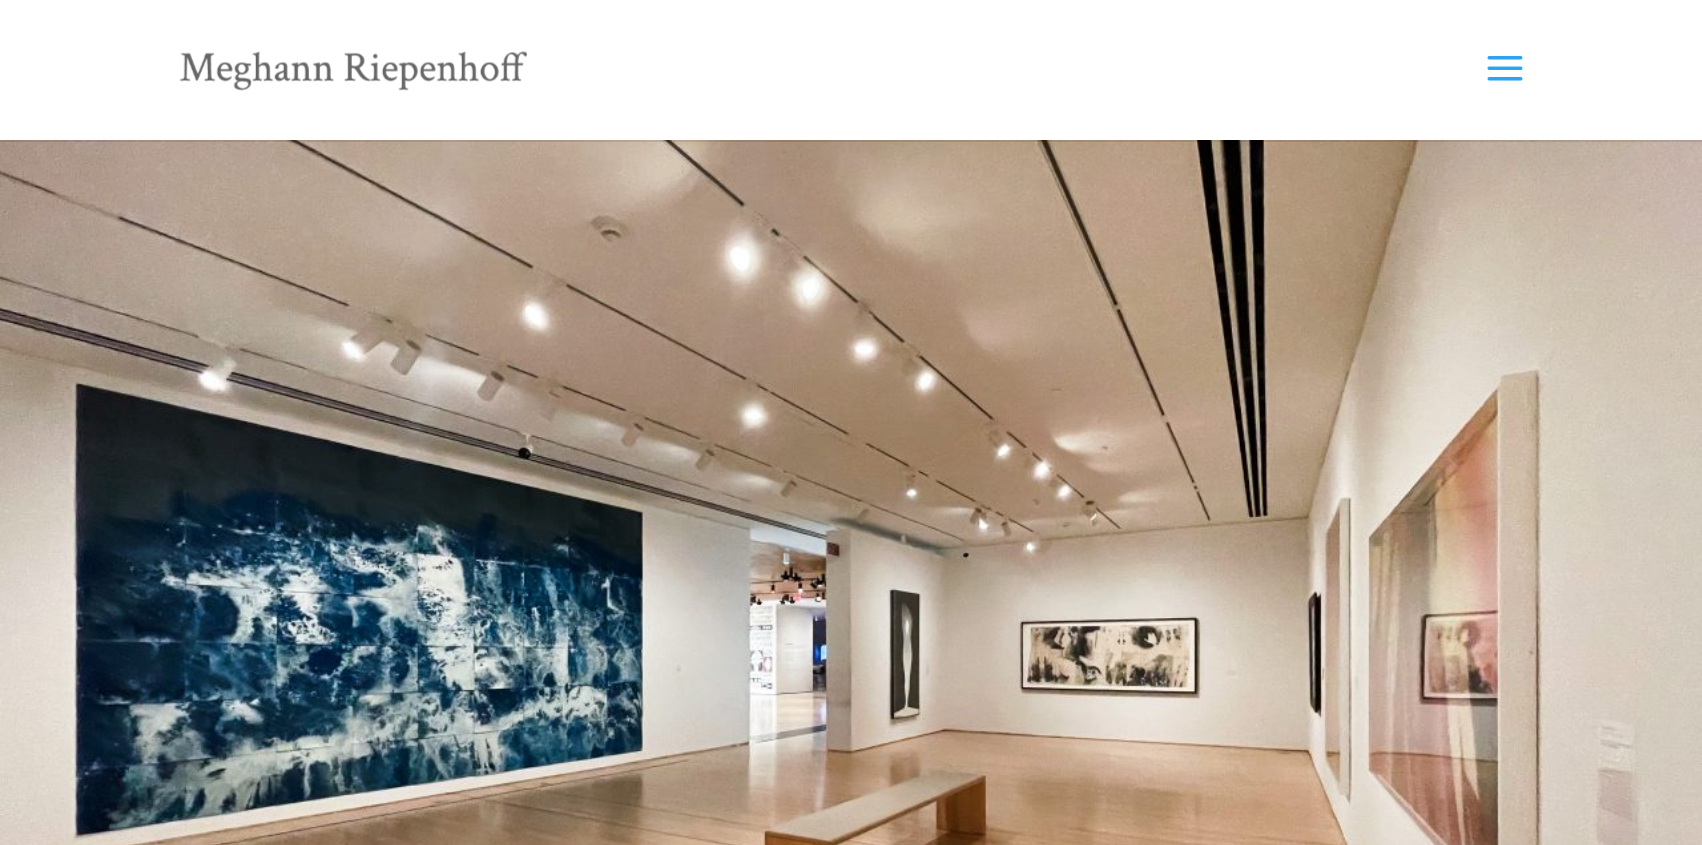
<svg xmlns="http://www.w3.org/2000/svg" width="1702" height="845">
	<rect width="100%" height="100%" fill="#FFFFFF" />
	<image x="0" y="140" width="1702" height="705" href="assets/img3.png" />
	<path d="M0 140V142H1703V2V140Z" fill="#000000" fill-opacity="0.1" />
	<image x="179" y="51" width="348" height="40" href="assets/img1.png" />
	<image x="1487" y="56" width="36" height="25" href="assets/img2.png" />
</svg>
